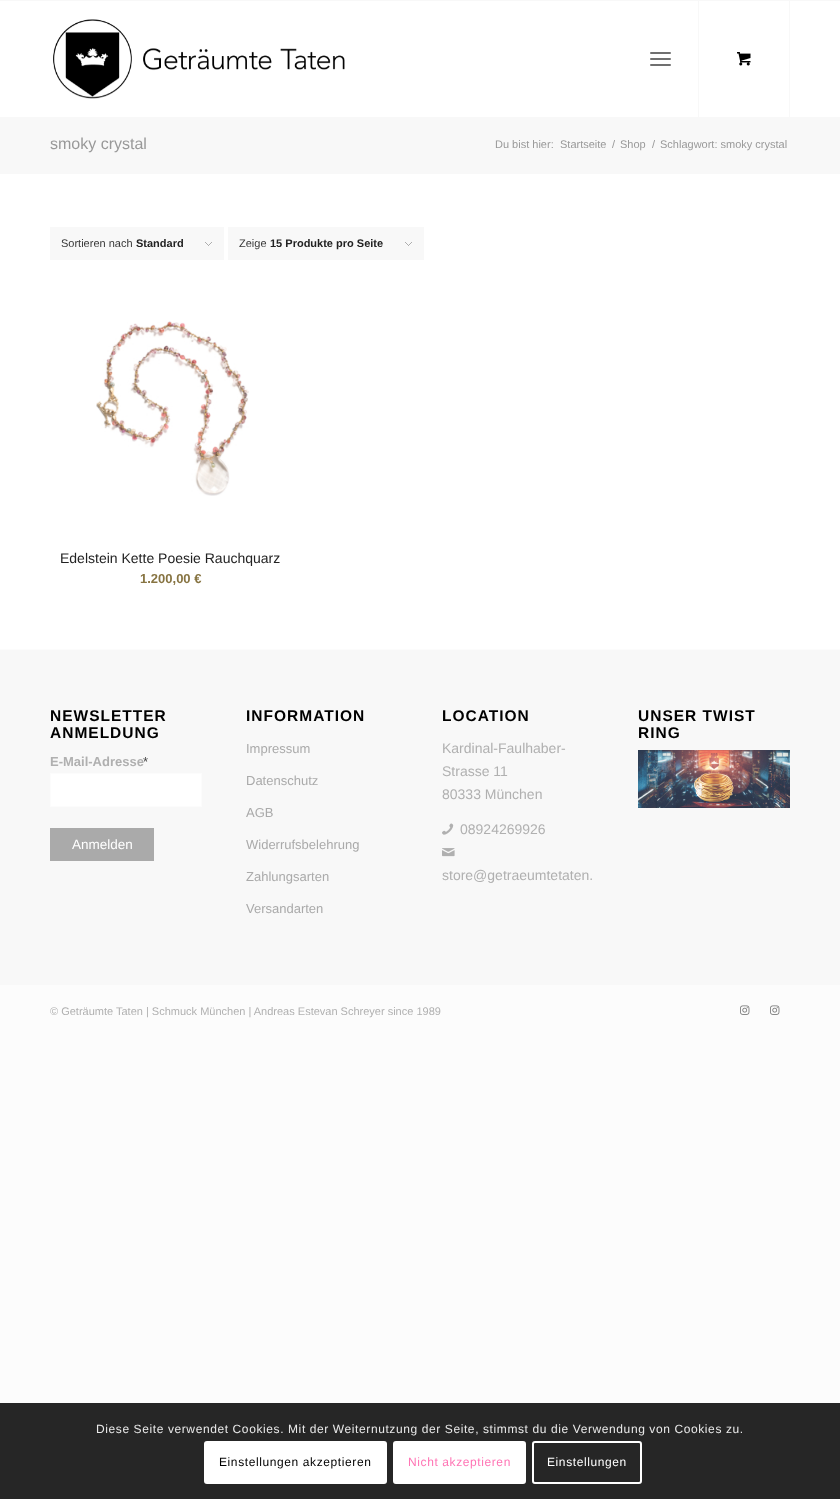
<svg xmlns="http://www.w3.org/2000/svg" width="840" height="1499">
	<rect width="100%" height="100%" fill="#FCFCFC" />
	<rect x="0" y="174" width="840" height="475" fill="#FFFFFF" />
	<rect x="0" y="0" width="840" height="1" fill="#F8F8F8" />
	<rect x="0" y="1" width="840" height="116" fill="#FFFFFF" />
	<image x="53" y="19" width="292" height="80" href="assets/img1.png" />
	<rect x="650" y="58" width="21" height="2" rx="1" fill="#707070" />
	<rect x="650" y="52" width="21" height="2" rx="1" fill="#707070" />
	<rect x="650" y="64" width="21" height="2" rx="1" fill="#707070" />
	<rect x="789" y="1" width="1" height="116" fill="#F8F8F8" />
	<rect x="698" y="1" width="1" height="116" fill="#F8F8F8" />
	<image x="737" y="52" width="14" height="14" href="assets/img2.png" />
	<rect x="0" y="117" width="840" height="57" fill="#F8F8F8" />
	<text x="50" y="149" font-family="Liberation Sans" font-size="16" fill="#999999">smoky crystal</text>
	<g font-family="Liberation Sans" font-size="11" fill="#999999">
		<text x="495" y="148">Du bist hier:</text>
		<text x="560" y="148">Startseite</text>
		<text x="612" y="148">/</text>
		<text x="620" y="148">Shop</text>
		<text x="652" y="148">/</text>
		<text x="660" y="148">Schlagwort: smoky crystal</text>
	</g>
	<rect x="50" y="227" width="174" height="33" fill="#F8F8F8" />
	<image x="205" y="242" width="7" height="4" href="assets/img3.png" />
	<text x="61" y="247" font-family="Liberation Sans" font-size="11" fill="#383838">Sortieren nach</text>
	<text x="136" y="247" font-family="Liberation Sans" font-size="11" font-weight="700" fill="#222222">Standard</text>
	<rect x="228" y="227" width="196" height="33" fill="#F8F8F8" />
	<image x="405" y="242" width="7" height="4" href="assets/img3.png" />
	<text x="239" y="247" font-family="Liberation Sans" font-size="11" fill="#383838">Zeige</text>
	<text x="270" y="247" font-family="Liberation Sans" font-size="11" font-weight="700" fill="#222222">15 Produkte pro Seite</text>
	<image x="96" y="321" width="153" height="175" href="assets/img4.png" />
	<text x="60" y="563" font-family="Liberation Sans" font-size="14" fill="#222222">Edelstein Kette Poesie Rauchquarz</text>
	<text x="140" y="583" font-family="Liberation Sans" font-size="13" font-weight="700" fill="#877442">1.200,00 €</text>
	<rect x="0" y="650" width="840" height="335" fill="#F8F8F8" />
	<g font-family="Liberation Sans" font-size="15.5" font-weight="700" letter-spacing="1" fill="#000000">
		<text x="50" y="721">NEWSLETTER</text>
		<text x="50" y="738">ANMELDUNG</text>
	</g>
	<text x="50" y="766" font-family="Liberation Sans" font-size="13" font-weight="700" fill="#B0B0B0">E-Mail-Adresse</text>
	<text x="143" y="766" font-family="Liberation Sans" font-size="13" fill="#444444">*</text>
	<rect x="50.5" y="773.5" width="151" height="33" fill="#FFFFFF" stroke="#FCFCFC" />
	<rect x="50" y="828" width="104" height="33" fill="#AAAAAA" />
	<text x="72" y="849" font-family="Liberation Sans" font-size="13.5" fill="#FFFFFF">Anmelden</text>
	<text x="246" y="721" font-family="Liberation Sans" font-size="15.5" font-weight="700" letter-spacing="1" fill="#000000">INFORMATION</text>
	<g font-family="Liberation Sans" font-size="13" fill="#AAAAAA">
		<text x="246" y="753">Impressum</text>
		<text x="246" y="785">Datenschutz</text>
		<text x="246" y="817">AGB</text>
		<text x="246" y="849">Widerrufsbelehrung</text>
		<text x="246" y="881">Zahlungsarten</text>
		<text x="246" y="913">Versandarten</text>
	</g>
	<text x="442" y="721" font-family="Liberation Sans" font-size="15.5" font-weight="700" letter-spacing="1" fill="#000000">LOCATION</text>
	<g font-family="Liberation Sans" font-size="14" fill="#B0B0B0">
		<text x="442" y="753">Kardinal-Faulhaber-</text>
		<text x="442" y="776">Strasse 11</text>
		<text x="442" y="799">80333 München</text>
	</g>
	<image x="442" y="823" width="12" height="12" href="assets/img5.png" />
	<text x="460" y="834" font-family="Liberation Sans" font-size="14" fill="#B0B0B0">08924269926</text>
	<image x="442" y="848" width="13" height="9" href="assets/img6.png" />
	<text x="442" y="880" font-family="Liberation Sans" font-size="14" fill="#B0B0B0">store@getraeumtetaten.</text>
	<g font-family="Liberation Sans" font-size="15.5" font-weight="700" letter-spacing="1" fill="#000000">
		<text x="638" y="721">UNSER TWIST</text>
		<text x="638" y="738">RING</text>
	</g>
	<image x="638" y="750" width="152" height="58" href="assets/img7.png" />
	<text x="50" y="1015" font-family="Liberation Sans" font-size="11" fill="#B0B0B0">© Geträumte Taten | Schmuck München | Andreas Estevan Schreyer since 1989</text>
	<image x="740" y="1005" width="10" height="10" href="assets/img8.png" />
	<image x="770" y="1005" width="10" height="10" href="assets/img8.png" />
	<rect x="0" y="1403" width="840" height="96" fill="#262626" />
	<text x="96" y="1433" font-family="Liberation Sans" font-size="12" letter-spacing="0.6" fill="#E9E9E9">Diese Seite verwendet Cookies. Mit der Weiternutzung der Seite, stimmst du die Verwendung von Cookies zu.</text>
	<rect x="204" y="1441" width="183" height="43" rx="3" fill="#FFFFFF" />
	<text x="219" y="1466" font-family="Liberation Sans" font-size="12" letter-spacing="0.6" fill="#000000">Einstellungen akzeptieren</text>
	<rect x="394" y="1442" width="131" height="41" rx="2" fill="#FFFFFF" stroke="#FFFFFF" stroke-width="2" />
	<text x="408" y="1466" font-family="Liberation Sans" font-size="12" letter-spacing="0.6" fill="#FF75B5">Nicht akzeptieren</text>
	<rect x="533" y="1442" width="108" height="41" rx="2" fill="none" stroke="#FFFFFF" stroke-width="2" />
	<text x="547" y="1466" font-family="Liberation Sans" font-size="12" letter-spacing="0.6" fill="#FFFFFF">Einstellungen</text>
</svg>
